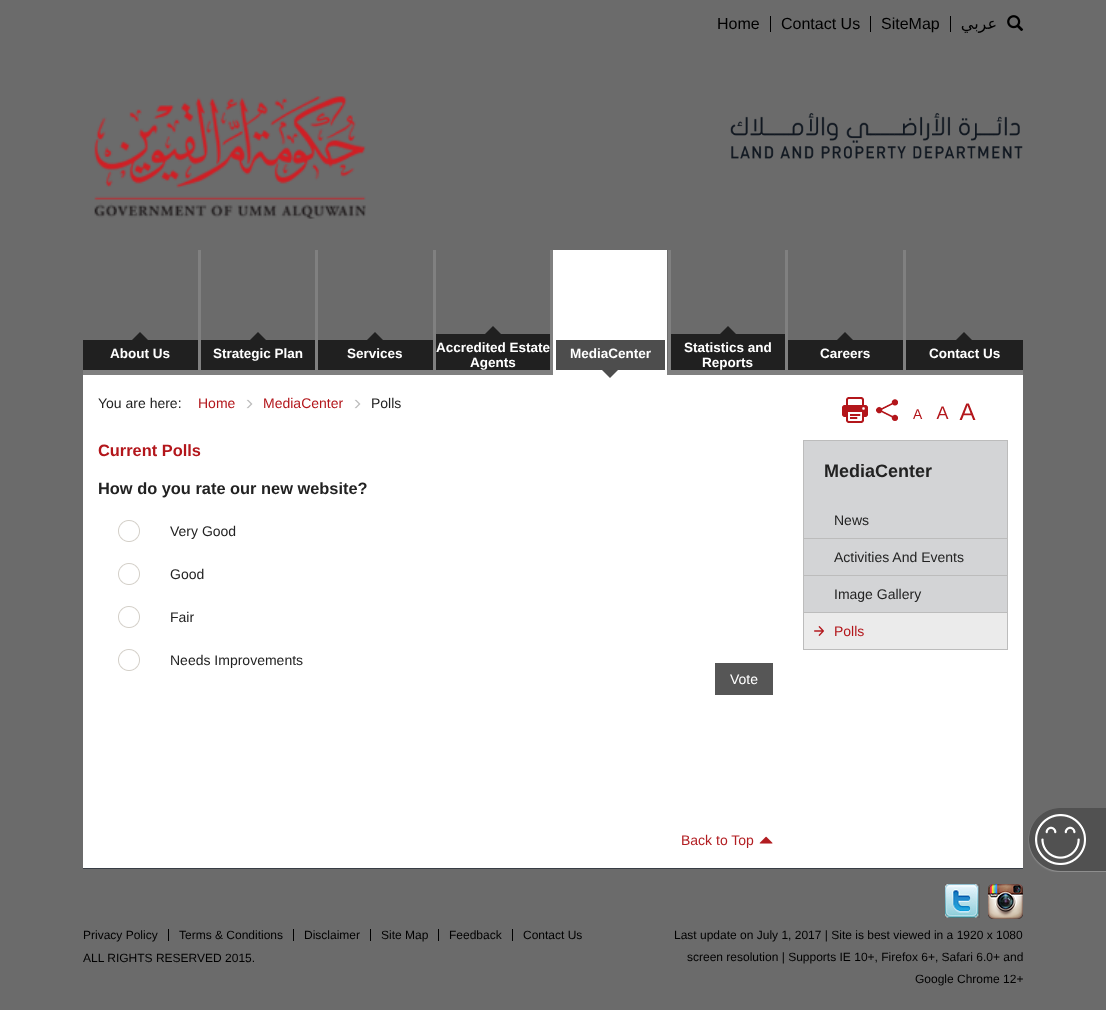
<svg xmlns="http://www.w3.org/2000/svg" width="1106" height="1010">
	<rect width="100%" height="100%" fill="#6B6B6B" />
	<rect x="770" y="16" width="1" height="16" fill="#000000" />
	<text x="717" y="29" font-family="Liberation Sans" font-size="16" fill="#000000">Home</text>
	<rect x="870" y="16" width="1" height="16" fill="#000000" />
	<text x="781" y="29" font-family="Liberation Sans" font-size="16" fill="#000000">Contact Us</text>
	<rect x="950" y="16" width="1" height="16" fill="#000000" />
	<text x="881" y="29" font-family="Liberation Sans" font-size="16" fill="#000000">SiteMap</text>
	<text x="997" y="29" font-family="DejaVu Sans" font-size="16" direction="rtl" fill="#000000">عربي</text>
	<image x="1007" y="15" width="17" height="16" href="assets/img1.png" />
	<image x="94" y="96" width="272" height="123" href="assets/img2.png" />
	<image x="730" y="113" width="293" height="46" href="assets/img3.png" />
	<rect x="83" y="370" width="940" height="5" fill="#808080" />
	<rect x="198" y="250" width="3" height="120" fill="#808080" />
	<rect x="83" y="340" width="115" height="30" fill="#202020" />
	<path d="M148 340H132L140 332Z" fill="#202020" />
	<text x="110" y="358" font-family="Liberation Sans" font-size="13.5" font-weight="700" fill="#FFFFFF">About Us</text>
	<rect x="315" y="250" width="3" height="120" fill="#808080" />
	<rect x="201" y="340" width="114" height="30" fill="#202020" />
	<path d="M266 340H250L258 332Z" fill="#202020" />
	<text x="213" y="358" font-family="Liberation Sans" font-size="13.5" font-weight="700" fill="#FFFFFF">Strategic Plan</text>
	<rect x="433" y="250" width="3" height="120" fill="#808080" />
	<rect x="318" y="340" width="115" height="30" fill="#202020" />
	<path d="M383 340H367L375 332Z" fill="#202020" />
	<text x="347" y="358" font-family="Liberation Sans" font-size="13.5" font-weight="700" fill="#FFFFFF">Services</text>
	<rect x="550" y="250" width="3" height="120" fill="#808080" />
	<rect x="436" y="334" width="114" height="36" fill="#202020" />
	<path d="M501 334H485L493 326Z" fill="#202020" />
	<g font-family="Liberation Sans" font-size="13.5" font-weight="700" fill="#FFFFFF">
		<text x="436" y="352">Accredited Estate</text>
		<text x="470" y="367">Agents</text>
	</g>
	<rect x="668" y="250" width="3" height="120" fill="#808080" />
	<rect x="556" y="253" width="108" height="87" fill="#FFFFFF" />
	<rect x="553" y="250" width="114" height="3" fill="#FFFFFF" />
	<rect x="664" y="250" width="3" height="125" fill="#FFFFFF" />
	<rect x="553" y="370" width="114" height="5" fill="#FFFFFF" />
	<rect x="553" y="250" width="3" height="125" fill="#FFFFFF" />
	<rect x="556" y="340" width="109" height="30" fill="#4D4D4D" />
	<text x="570" y="358" font-family="Liberation Sans" font-size="13.5" font-weight="700" fill="#FFFFFF">MediaCenter</text>
	<rect x="83" y="375" width="940" height="493" fill="#FFFFFF" />
	<path d="M602 370H618L610 378Z" fill="#4D4D4D" />
	<rect x="785" y="250" width="3" height="120" fill="#808080" />
	<rect x="671" y="334" width="114" height="36" fill="#202020" />
	<path d="M736 334H720L728 326Z" fill="#202020" />
	<g font-family="Liberation Sans" font-size="13.5" font-weight="700" fill="#FFFFFF">
		<text x="684" y="352">Statistics and</text>
		<text x="702" y="367">Reports</text>
	</g>
	<rect x="903" y="250" width="3" height="120" fill="#808080" />
	<rect x="788" y="340" width="115" height="30" fill="#202020" />
	<path d="M853 340H837L845 332Z" fill="#202020" />
	<text x="820" y="358" font-family="Liberation Sans" font-size="13.5" font-weight="700" fill="#FFFFFF">Careers</text>
	<rect x="906" y="340" width="117" height="30" fill="#202020" />
	<path d="M972 340H956L964 332Z" fill="#202020" />
	<text x="929" y="358" font-family="Liberation Sans" font-size="13.5" font-weight="700" fill="#FFFFFF">Contact Us</text>
	<text x="98" y="408" font-family="Liberation Sans" font-size="14" fill="#222222">You are here:</text>
	<text x="198" y="408" font-family="Liberation Sans" font-size="14" fill="#B3161B">Home</text>
	<image x="246" y="399" width="7" height="10" href="assets/img4.png" />
	<text x="263" y="408" font-family="Liberation Sans" font-size="14" fill="#B3161B">MediaCenter</text>
	<image x="354" y="399" width="7" height="10" href="assets/img4.png" />
	<text x="371" y="408" font-family="Liberation Sans" font-size="14" fill="#222222">Polls</text>
	<text x="98" y="456" font-family="Liberation Sans" font-size="16.4" font-weight="700" fill="#B3161B">Current Polls</text>
	<text x="98" y="494" font-family="Liberation Sans" font-size="16.4" font-weight="700" fill="#222222">How do you rate our new website?</text>
	<image x="118" y="520" width="22" height="22" href="assets/img5.png" />
	<text x="170" y="536" font-family="Liberation Sans" font-size="14" fill="#222222">Very Good</text>
	<image x="118" y="563" width="22" height="22" href="assets/img5.png" />
	<text x="170" y="579" font-family="Liberation Sans" font-size="14" fill="#222222">Good</text>
	<image x="118" y="606" width="22" height="22" href="assets/img5.png" />
	<text x="170" y="622" font-family="Liberation Sans" font-size="14" fill="#222222">Fair</text>
	<image x="118" y="649" width="22" height="22" href="assets/img5.png" />
	<text x="170" y="665" font-family="Liberation Sans" font-size="14" fill="#222222">Needs Improvements</text>
	<rect x="715" y="663" width="58" height="32" fill="#565656" />
	<text x="730" y="684" font-family="Liberation Sans" font-size="14" fill="#FFFFFF">Vote</text>
	<text x="681" y="845" font-family="Liberation Sans" font-size="14" fill="#B21D21">Back to Top</text>
	<image x="759" y="836" width="14" height="8" href="assets/img6.png" />
	<image x="842" y="397" width="26" height="26" href="assets/img7.png" />
	<image x="876" y="399" width="22" height="22" href="assets/img8.png" />
	<image x="913" y="409" width="10" height="10" href="assets/img9.png" />
	<image x="936" y="406" width="13" height="13" href="assets/img10.png" />
	<image x="959" y="403" width="17" height="17" href="assets/img11.png" />
	<rect x="804" y="441" width="203" height="171" fill="#D3D4D6" />
	<rect x="803.5" y="440.5" width="204" height="209" fill="none" stroke="#BCBCBC" />
	<text x="824" y="477" font-family="Liberation Sans" font-size="18" font-weight="700" fill="#222222">MediaCenter</text>
	<rect x="804" y="538" width="203" height="1" fill="#BCBCBC" />
	<text x="834" y="525" font-family="Liberation Sans" font-size="14" fill="#222222">News</text>
	<rect x="804" y="575" width="203" height="1" fill="#BCBCBC" />
	<text x="834" y="562" font-family="Liberation Sans" font-size="14" fill="#222222">Activities And Events</text>
	<rect x="804" y="612" width="203" height="1" fill="#BCBCBC" />
	<text x="834" y="599" font-family="Liberation Sans" font-size="14" fill="#222222">Image Gallery</text>
	<rect x="804" y="613" width="203" height="36" fill="#EBEBEB" />
	<image x="814" y="626" width="10" height="10" href="assets/img12.png" />
	<text x="834" y="636" font-family="Liberation Sans" font-size="14" fill="#B3161B">Polls</text>
	<rect x="83" y="868" width="940" height="1" fill="#373D44" />
	<rect x="168" y="929" width="1" height="12" fill="#000000" />
	<text x="83" y="939" font-family="Liberation Sans" font-size="12" fill="#000000">Privacy Policy</text>
	<rect x="293" y="929" width="1" height="12" fill="#000000" />
	<text x="179" y="939" font-family="Liberation Sans" font-size="12" fill="#000000">Terms &amp; Conditions</text>
	<rect x="370" y="929" width="1" height="12" fill="#000000" />
	<text x="304" y="939" font-family="Liberation Sans" font-size="12" fill="#000000">Disclaimer</text>
	<rect x="438" y="929" width="1" height="12" fill="#000000" />
	<text x="381" y="939" font-family="Liberation Sans" font-size="12" fill="#000000">Site Map</text>
	<rect x="512" y="929" width="1" height="12" fill="#000000" />
	<g font-family="Liberation Sans" font-size="12" fill="#000000">
		<text x="449" y="939">Feedback</text>
		<text x="523" y="939">Contact Us</text>
		<text x="83" y="962">ALL RIGHTS RESERVED 2015.</text>
	</g>
	<image x="945" y="884" width="35" height="34" href="assets/img13.png" />
	<image x="988" y="884" width="35" height="35" href="assets/img14.png" />
	<g font-family="Liberation Sans" font-size="12" fill="#000000">
		<text x="674" y="939">Last update on July 1, 2017 | Site is best viewed in a 1920 x 1080</text>
		<text x="687" y="961">screen resolution | Supports IE 10+, Firefox 6+, Safari 6.0+ and</text>
		<text x="915" y="983">Google Chrome 12+</text>
	</g>
	<image x="1028" y="808" width="78" height="64" href="assets/img15.png" />
</svg>
